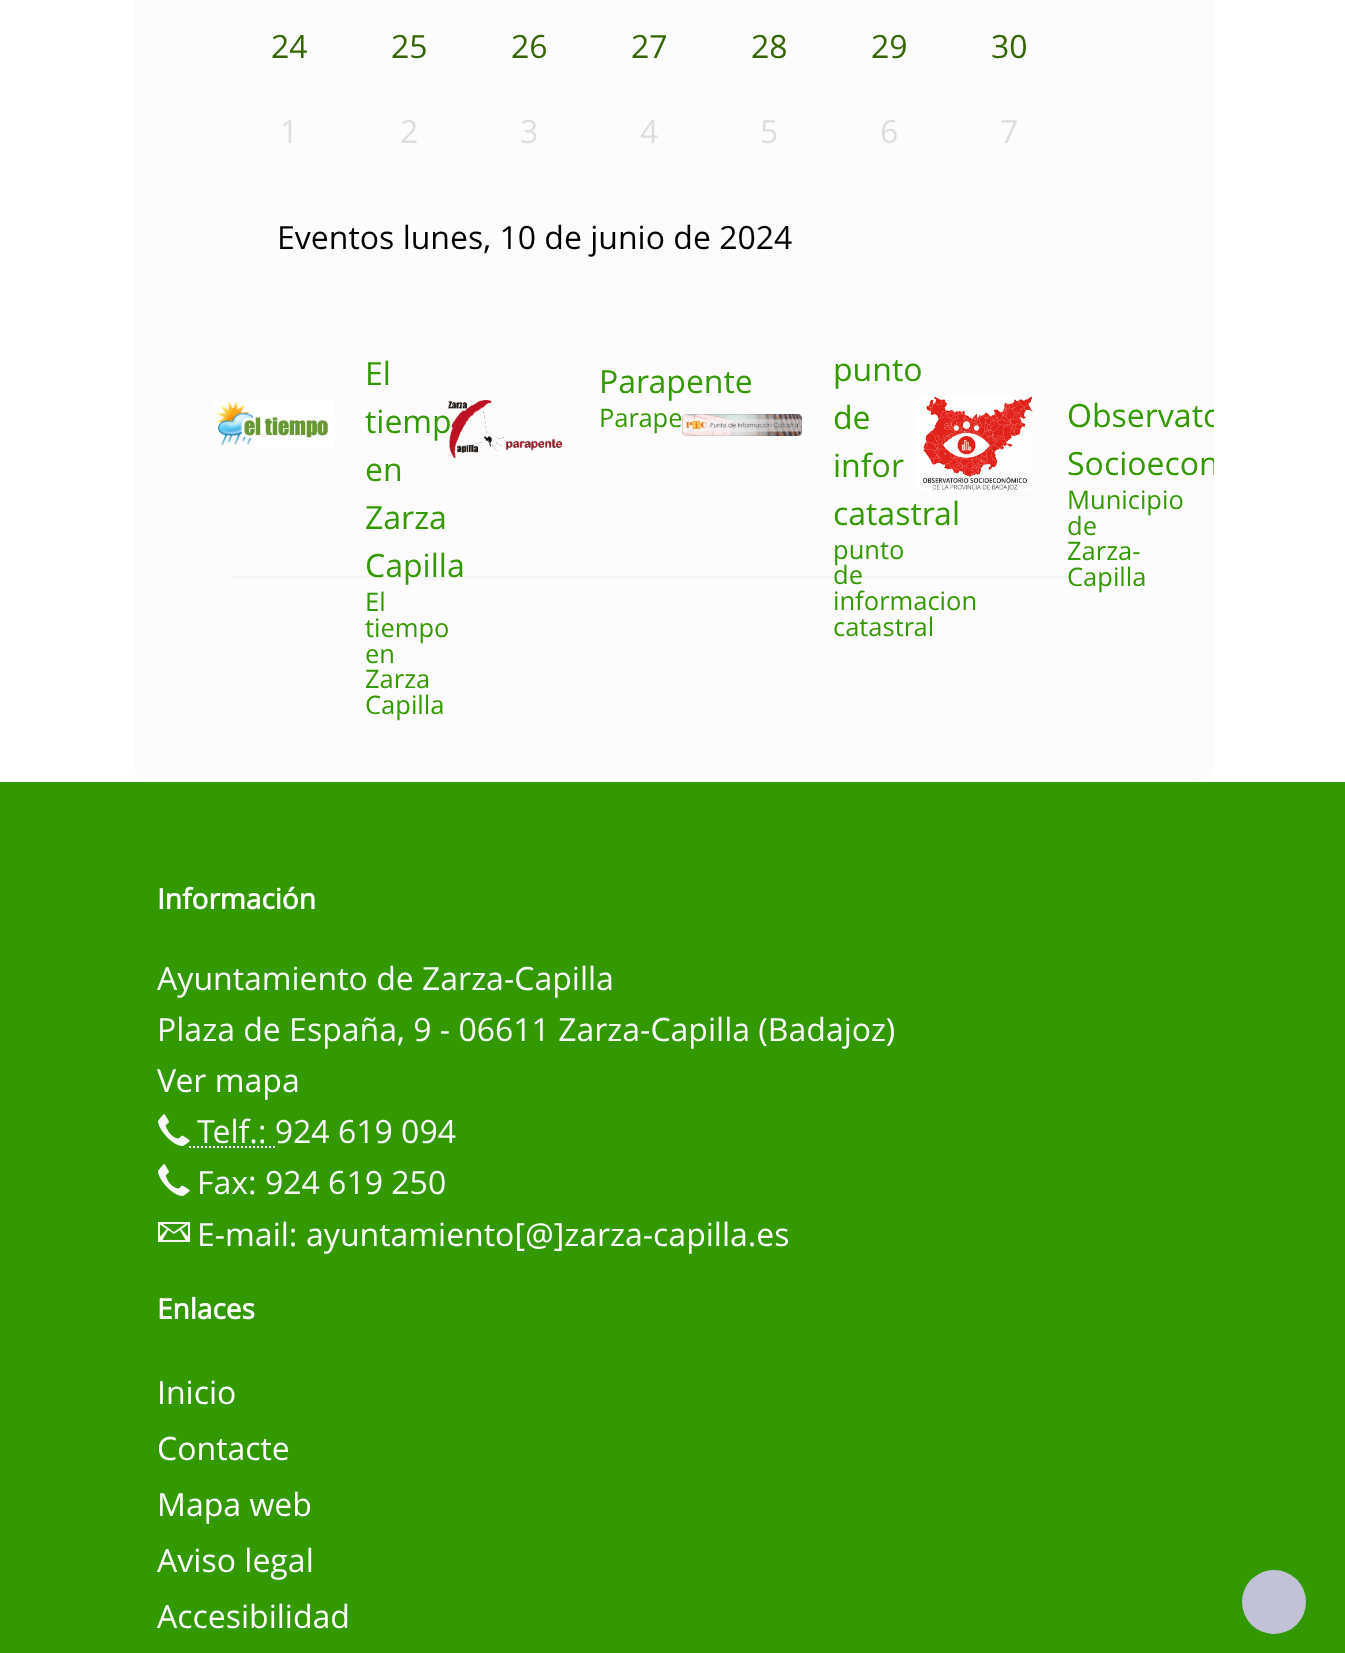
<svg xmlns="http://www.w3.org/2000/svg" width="1345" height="1653">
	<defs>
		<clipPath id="clip1"><path d="M154-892H1214V762C1214 773 1205 782 1194 782H154C143 782 134 773 134 762V-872C134-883 143-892 154-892Z" /></clipPath>
	</defs>
	<rect width="100%" height="100%" fill="#FFFFFF" />
	<path d="M154-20H1214V762C1214 773 1205 782 1194 782H154C143 782 134 773 134 762V0C134-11 143-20 154-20Z" fill="#FCFCFC" />
	<g font-family="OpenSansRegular" font-size="32" fill="#336600">
		<text x="271" y="58">24</text>
		<text x="391" y="58">25</text>
		<text x="511" y="58">26</text>
		<text x="631" y="58">27</text>
		<text x="751" y="58">28</text>
		<text x="871" y="58">29</text>
		<text x="991" y="58">30</text>
	</g>
	<g font-family="OpenSansRegular" font-size="32" fill="#DDDDDD">
		<text x="280" y="143">1</text>
		<text x="400" y="143">2</text>
		<text x="520" y="143">3</text>
		<text x="640" y="143">4</text>
		<text x="760" y="143">5</text>
		<text x="880" y="143">6</text>
		<text x="1000" y="143">7</text>
	</g>
	<text x="277" y="249" font-family="OpenSansRegular" font-size="32" fill="#000000">Eventos lunes, 10 de junio de 2024</text>
	<image x="214" y="400" width="120" height="48" href="assets/img1.png" />
	<g font-family="OpenSansRegular" font-size="32" fill="#339900">
		<text x="365" y="385">El</text>
		<text x="365" y="433">tiemp</text>
		<text x="365" y="481">en</text>
		<text x="365" y="529">Zarza</text>
	</g>
	<rect x="230" y="576" width="888" height="2" fill="#F5F5F5" />
	<text x="365" y="577" font-family="OpenSansRegular" font-size="32" fill="#339900">Capilla</text>
	<g font-family="OpenSansRegular" font-size="25.5" fill="#339900">
		<text x="365" y="611">El</text>
		<text x="365" y="637">tiempo</text>
		<text x="365" y="663">en</text>
		<text x="365" y="688">Zarza</text>
		<text x="365" y="714">Capilla</text>
	</g>
	<image x="448" y="400" width="114" height="58" href="assets/img2.png" />
	<text x="599" y="393" font-family="OpenSansRegular" font-size="32" fill="#339900">Parapente</text>
	<text x="599" y="427" font-family="OpenSansRegular" font-size="25.5" fill="#339900">Parape</text>
	<image x="682" y="414" width="120" height="22" href="assets/img3.png" />
	<g font-family="OpenSansRegular" font-size="32" fill="#339900">
		<text x="833" y="381">punto</text>
		<text x="833" y="429">de</text>
		<text x="833" y="477">infor</text>
		<text x="833" y="525">catastral</text>
	</g>
	<g font-family="OpenSansRegular" font-size="25.5" fill="#339900">
		<text x="833" y="559">punto</text>
		<text x="833" y="584">de</text>
		<text x="833" y="610">informacion</text>
		<text x="833" y="636">catastral</text>
	</g>
	<image x="916" y="396" width="117" height="95" href="assets/img4.png" />
	<g clip-path="url(#clip1)">
		<g font-family="OpenSansRegular" font-size="32" fill="#339900">
			<text x="1067" y="427">Observato</text>
			<text x="1067" y="475">Socioecon</text>
		</g>
	</g>
	<g font-family="OpenSansRegular" font-size="25.5" fill="#339900">
		<text x="1067" y="509">Municipio</text>
		<text x="1067" y="535">de</text>
		<text x="1067" y="560">Zarza-</text>
		<text x="1067" y="586">Capilla</text>
	</g>
	<rect x="0" y="782" width="1345" height="871" fill="#339900" />
	<text x="157" y="909" font-family="OpenSansRegular" font-size="28" font-weight="700" fill="#FFFFFF">Información</text>
	<g font-family="OpenSansRegular" font-size="32" fill="#F8F8F8">
		<text x="157" y="990">Ayuntamiento de Zarza-Capilla</text>
		<text x="157" y="1041">Plaza de España, 9 - 06611 Zarza-Capilla (Badajoz)</text>
	</g>
	<text x="157" y="1092" font-family="OpenSansRegular" font-size="32" fill="#FFFFFF">Ver mapa</text>
	<image x="158" y="1114" width="32" height="32" href="assets/img5.png" />
	<text x="197" y="1143" font-family="OpenSansRegular" font-size="32" fill="#F8F8F8">Telf.: 924 619 094</text>
	<path d="M189 1147H275" fill="none" stroke="#F8F8F8" stroke-width="2" stroke-dasharray="2 2" />
	<image x="158" y="1164" width="32" height="32" href="assets/img5.png" />
	<text x="197" y="1194" font-family="OpenSansRegular" font-size="32" fill="#F8F8F8">Fax: 924 619 250</text>
	<image x="158" y="1222" width="32" height="20" href="assets/img6.png" />
	<text x="197" y="1246" font-family="OpenSansRegular" font-size="32" fill="#F8F8F8">E-mail:</text>
	<text x="306" y="1246" font-family="OpenSansRegular" font-size="32" fill="#FFFFFF">ayuntamiento[@]zarza-capilla.es</text>
	<text x="157" y="1319" font-family="OpenSansRegular" font-size="28" font-weight="700" fill="#FFFFFF">Enlaces</text>
	<g font-family="OpenSansRegular" font-size="32" fill="#FFFFFF">
		<text x="157" y="1404">Inicio</text>
		<text x="157" y="1460">Contacte</text>
		<text x="157" y="1516">Mapa web</text>
		<text x="157" y="1572">Aviso legal</text>
		<text x="157" y="1628">Accesibilidad</text>
	</g>
	<circle cx="1274" cy="1602" r="32" fill="#C2C2D6" />
</svg>
